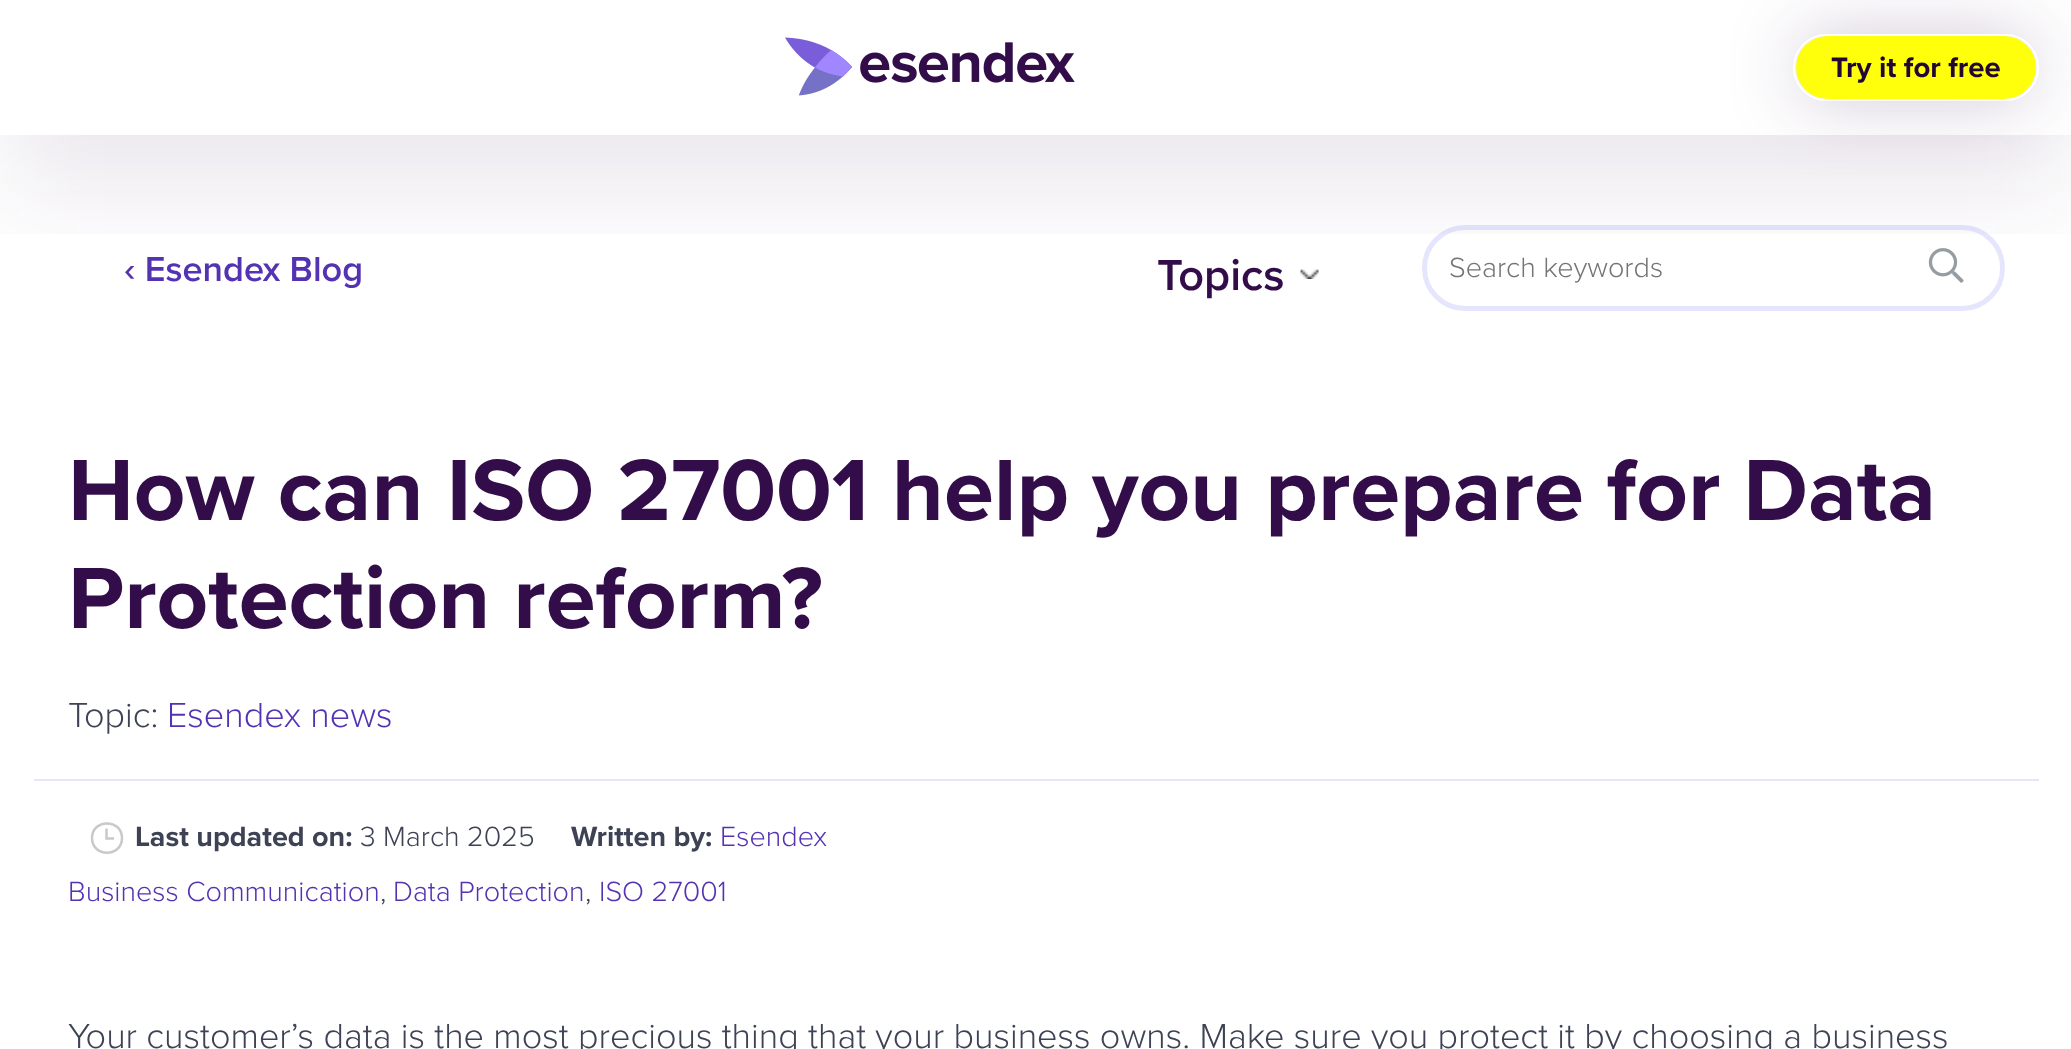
<svg xmlns="http://www.w3.org/2000/svg" width="2071" height="1049">
	<defs>
		<clipPath id="clip1"><rect x="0" y="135" width="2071" height="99" /></clipPath>
	</defs>
	<rect width="100%" height="100%" fill="#FFFFFF" />
	<image x="1300" y="269" width="19" height="10" href="assets/img2.png" />
	<rect x="1424.5" y="227.5" width="578" height="81" rx="40.5" fill="none" stroke="#E5E6FD" stroke-width="5" />
	<image x="1928" y="248" width="36" height="35" href="assets/img3.png" />
	<g clip-path="url(#clip1)">
		<rect x="0" y="54" width="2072" height="135" fill="#320D49" fill-opacity="0.1" filter="blur(54px)" />
	</g>
	<image x="785" y="37" width="290" height="59" href="assets/img1.png" />
	<rect x="1796" y="36" width="240" height="63" rx="31.5" fill="#320D49" fill-opacity="0.24" filter="blur(36px)" />
	<rect x="1796" y="36" width="240" height="63" rx="31.5" fill="#FFFF0B" />
	<rect x="1794" y="35" width="244" height="65" rx="32.5" fill="none" stroke="#FFFFFF" stroke-width="2" />
	<text x="1831" y="77" font-family="Proxima Nova" font-size="29.25" font-weight="700" fill="#220732">Try it for free</text>
	<text x="124" y="281" font-family="Proxima Nova" font-size="36" font-weight="600" fill="#5433B2">‹ Esendex Blog</text>
	<text x="1157" y="290" font-family="Proxima Nova" font-size="45" font-weight="600" fill="#320D49">Topics</text>
	<text x="1449" y="277" font-family="Proxima Nova" font-size="28.75" font-weight="300" fill="#757575">Search keywords</text>
	<g font-family="Proxima Nova" font-size="90" font-weight="700" fill="#320D49">
		<text x="68" y="520">How can ISO 27001 help you prepare for Data</text>
		<text x="68" y="628">Protection reform?</text>
	</g>
	<text x="68" y="727" font-family="Proxima Nova" font-size="36" font-weight="300" fill="#3D4354">Topic:</text>
	<text x="167" y="727" font-family="Proxima Nova" font-size="36" font-weight="300" fill="#5433B2">Esendex news</text>
	<rect x="34" y="779" width="2005" height="2" fill="#E5E6FD" />
	<path d="M122 838C122 818.5 92 818.5 92 838C92 857.5 122 857.5 122 838ZM106.5 828.5V838.5H114" fill="none" stroke="#C9C9C9" stroke-width="2.5" />
	<text x="135" y="846" font-family="Proxima Nova" font-size="28.75" font-weight="700" fill="#3D4354">Last updated on:</text>
	<text x="360" y="846" font-family="Proxima Nova" font-size="28.75" font-weight="300" fill="#3D4354">3 March 2025</text>
	<text x="571" y="846" font-family="Proxima Nova" font-size="28.75" font-weight="700" fill="#3D4354">Written by:</text>
	<g font-family="Proxima Nova" font-size="28.75" font-weight="300" fill="#5433B2">
		<text x="720" y="846">Esendex</text>
		<text x="68" y="901">Business Communication</text>
	</g>
	<text x="380" y="901" font-family="Proxima Nova" font-size="28.75" font-weight="300" fill="#3D4354">,</text>
	<text x="393" y="901" font-family="Proxima Nova" font-size="28.75" font-weight="300" fill="#5433B2">Data Protection</text>
	<text x="585" y="901" font-family="Proxima Nova" font-size="28.75" font-weight="300" fill="#3D4354">,</text>
	<text x="599" y="901" font-family="Proxima Nova" font-size="28.75" font-weight="300" fill="#5433B2">ISO 27001</text>
	<text x="68" y="1048" font-family="Proxima Nova" font-size="36" font-weight="300" fill="#3D4354">Your customer’s data is the most precious thing that your business owns. Make sure you protect it by choosing a business</text>
</svg>
